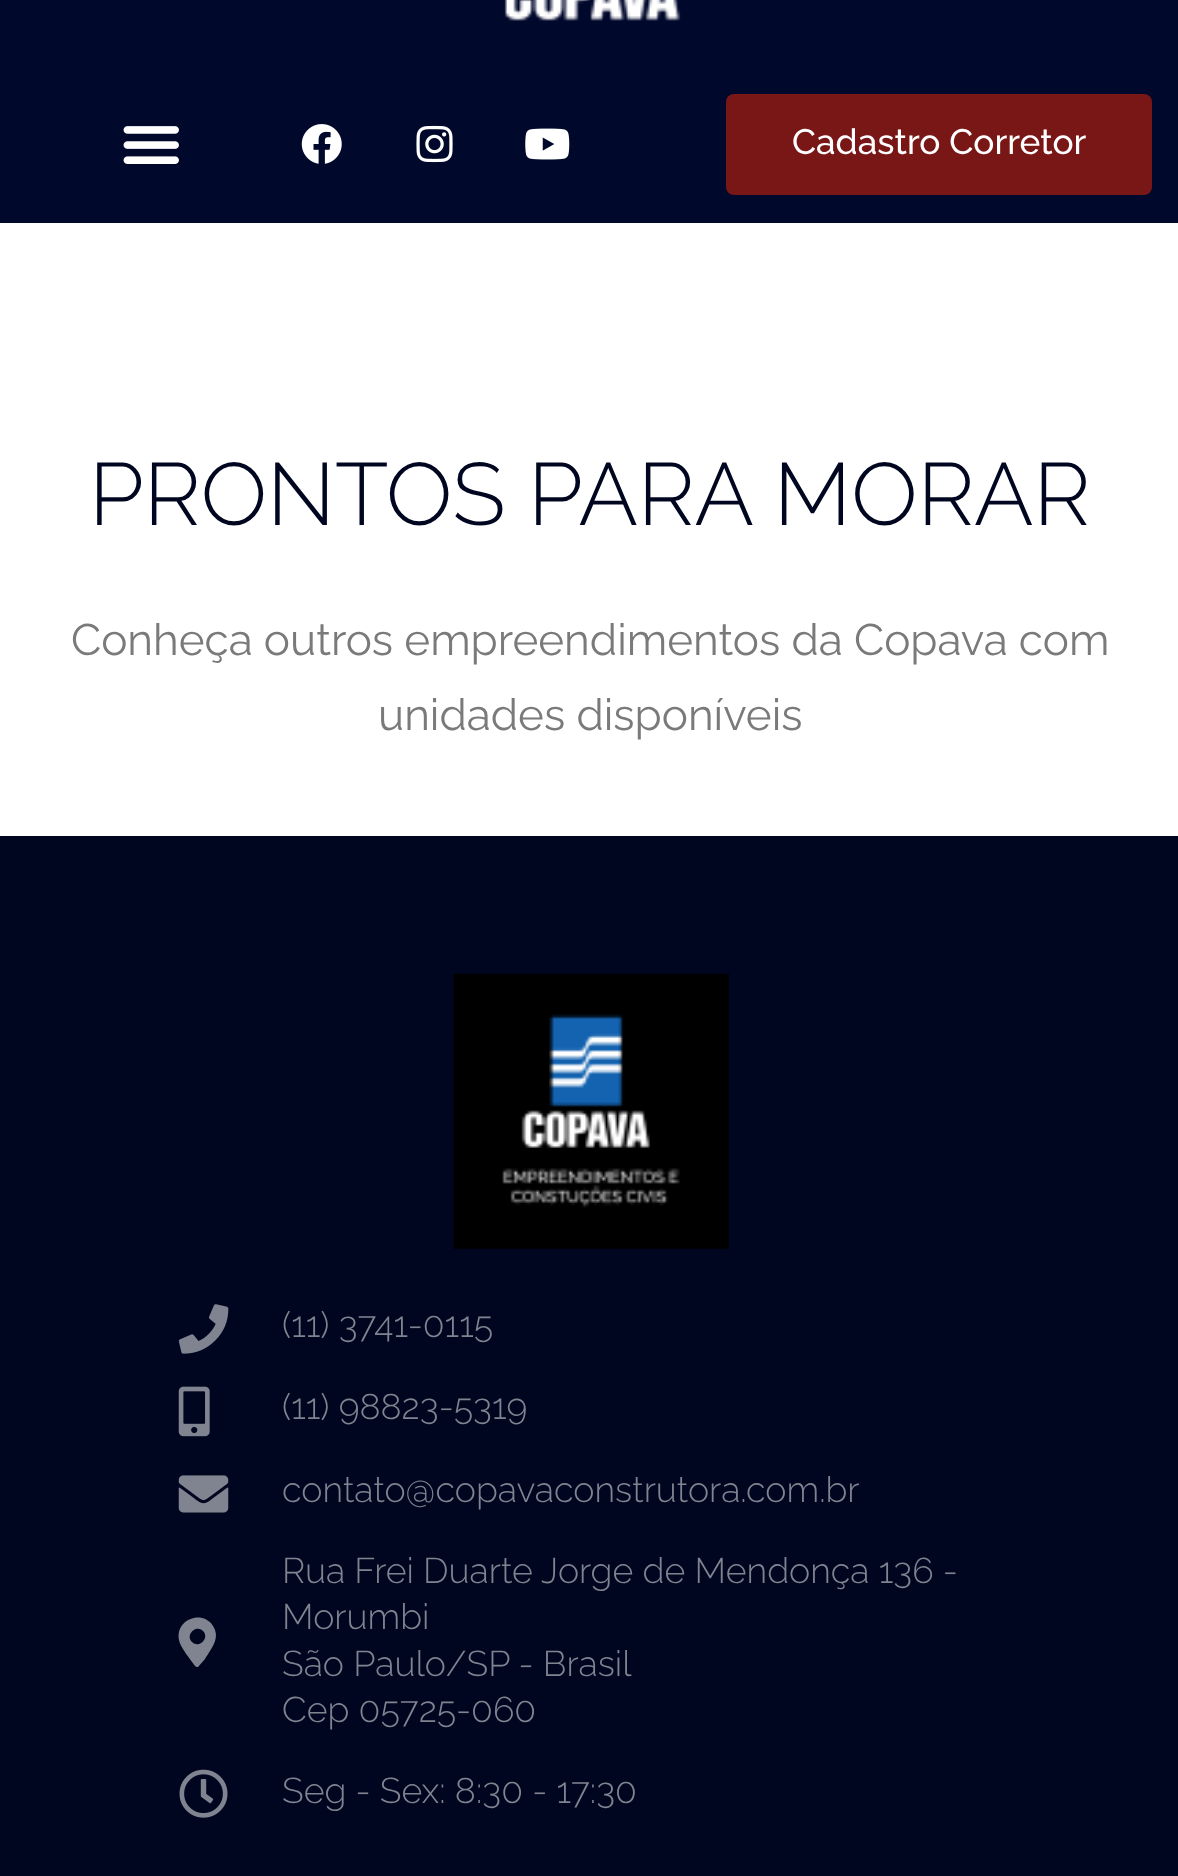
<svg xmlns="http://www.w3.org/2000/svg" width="1178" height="1876">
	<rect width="100%" height="100%" fill="#FFFFFF" />
	<rect x="0" y="0" width="1178" height="223" fill="#00082C" />
	<image x="504" y="0" width="177" height="21" href="assets/img1.png" />
	<image x="123" y="126" width="56" height="38" href="assets/img2.png" />
	<image x="301" y="124" width="41" height="40" href="assets/img3.png" />
	<image x="416" y="125" width="37" height="38" href="assets/img4.png" />
	<image x="525" y="128" width="45" height="32" href="assets/img5.png" />
	<rect x="726" y="94" width="426" height="101" rx="8" fill="#791717" />
	<text x="792" y="154" font-family="Raleway" font-size="35.25" font-weight="500" fill="#FFFFFF">Cadastro Corretor</text>
	<text x="89" y="525" font-family="Raleway" font-size="88" font-weight="300" fill="#000620">PRONTOS PARA MORAR</text>
	<g font-family="Raleway" font-size="44" fill="#7A7A7A">
		<text x="71" y="655">Conheça outros empreendimentos da Copava com</text>
		<text x="378" y="730">unidades disponíveis</text>
	</g>
	<rect x="0" y="836" width="1178" height="1040" fill="#000620" />
	<image x="453" y="973" width="276" height="276" href="assets/img6.png" />
	<image x="178" y="1304" width="51" height="50" href="assets/img7.png" />
	<text x="282" y="1337" font-family="Raleway" font-size="35.75" font-weight="300" fill="#808390">(11) 3741-0115</text>
	<image x="178" y="1386" width="32" height="51" href="assets/img8.png" />
	<text x="282" y="1419" font-family="Raleway" font-size="35.75" font-weight="300" fill="#808390">(11) 98823-5319</text>
	<image x="178" y="1475" width="51" height="38" href="assets/img9.png" />
	<text x="282" y="1502" font-family="Raleway" font-size="35.75" font-weight="300" fill="#808390">contato@copavaconstrutora.com.br</text>
	<path d="M195 1666C191 1660 180 1647 179 1640C175 1620 202 1609 213 1626C221 1638 211 1649 205 1659L198 1667C197 1667 196 1667 195 1666ZM192 1642C199 1649 210 1638 203 1631C196 1624 185 1635 192 1642Z" fill="#808390" />
	<g font-family="Raleway" font-size="35.75" font-weight="300" fill="#808390">
		<text x="282" y="1583">Rua Frei Duarte Jorge de Mendonça 136 -</text>
		<text x="282" y="1629">Morumbi</text>
		<text x="282" y="1676">São Paulo/SP - Brasil</text>
		<text x="282" y="1722">Cep 05725-060</text>
	</g>
	<image x="179" y="1769" width="49" height="49" href="assets/img10.png" />
	<text x="282" y="1803" font-family="Raleway" font-size="35.75" font-weight="300" fill="#808390">Seg - Sex: 8:30 - 17:30</text>
</svg>
